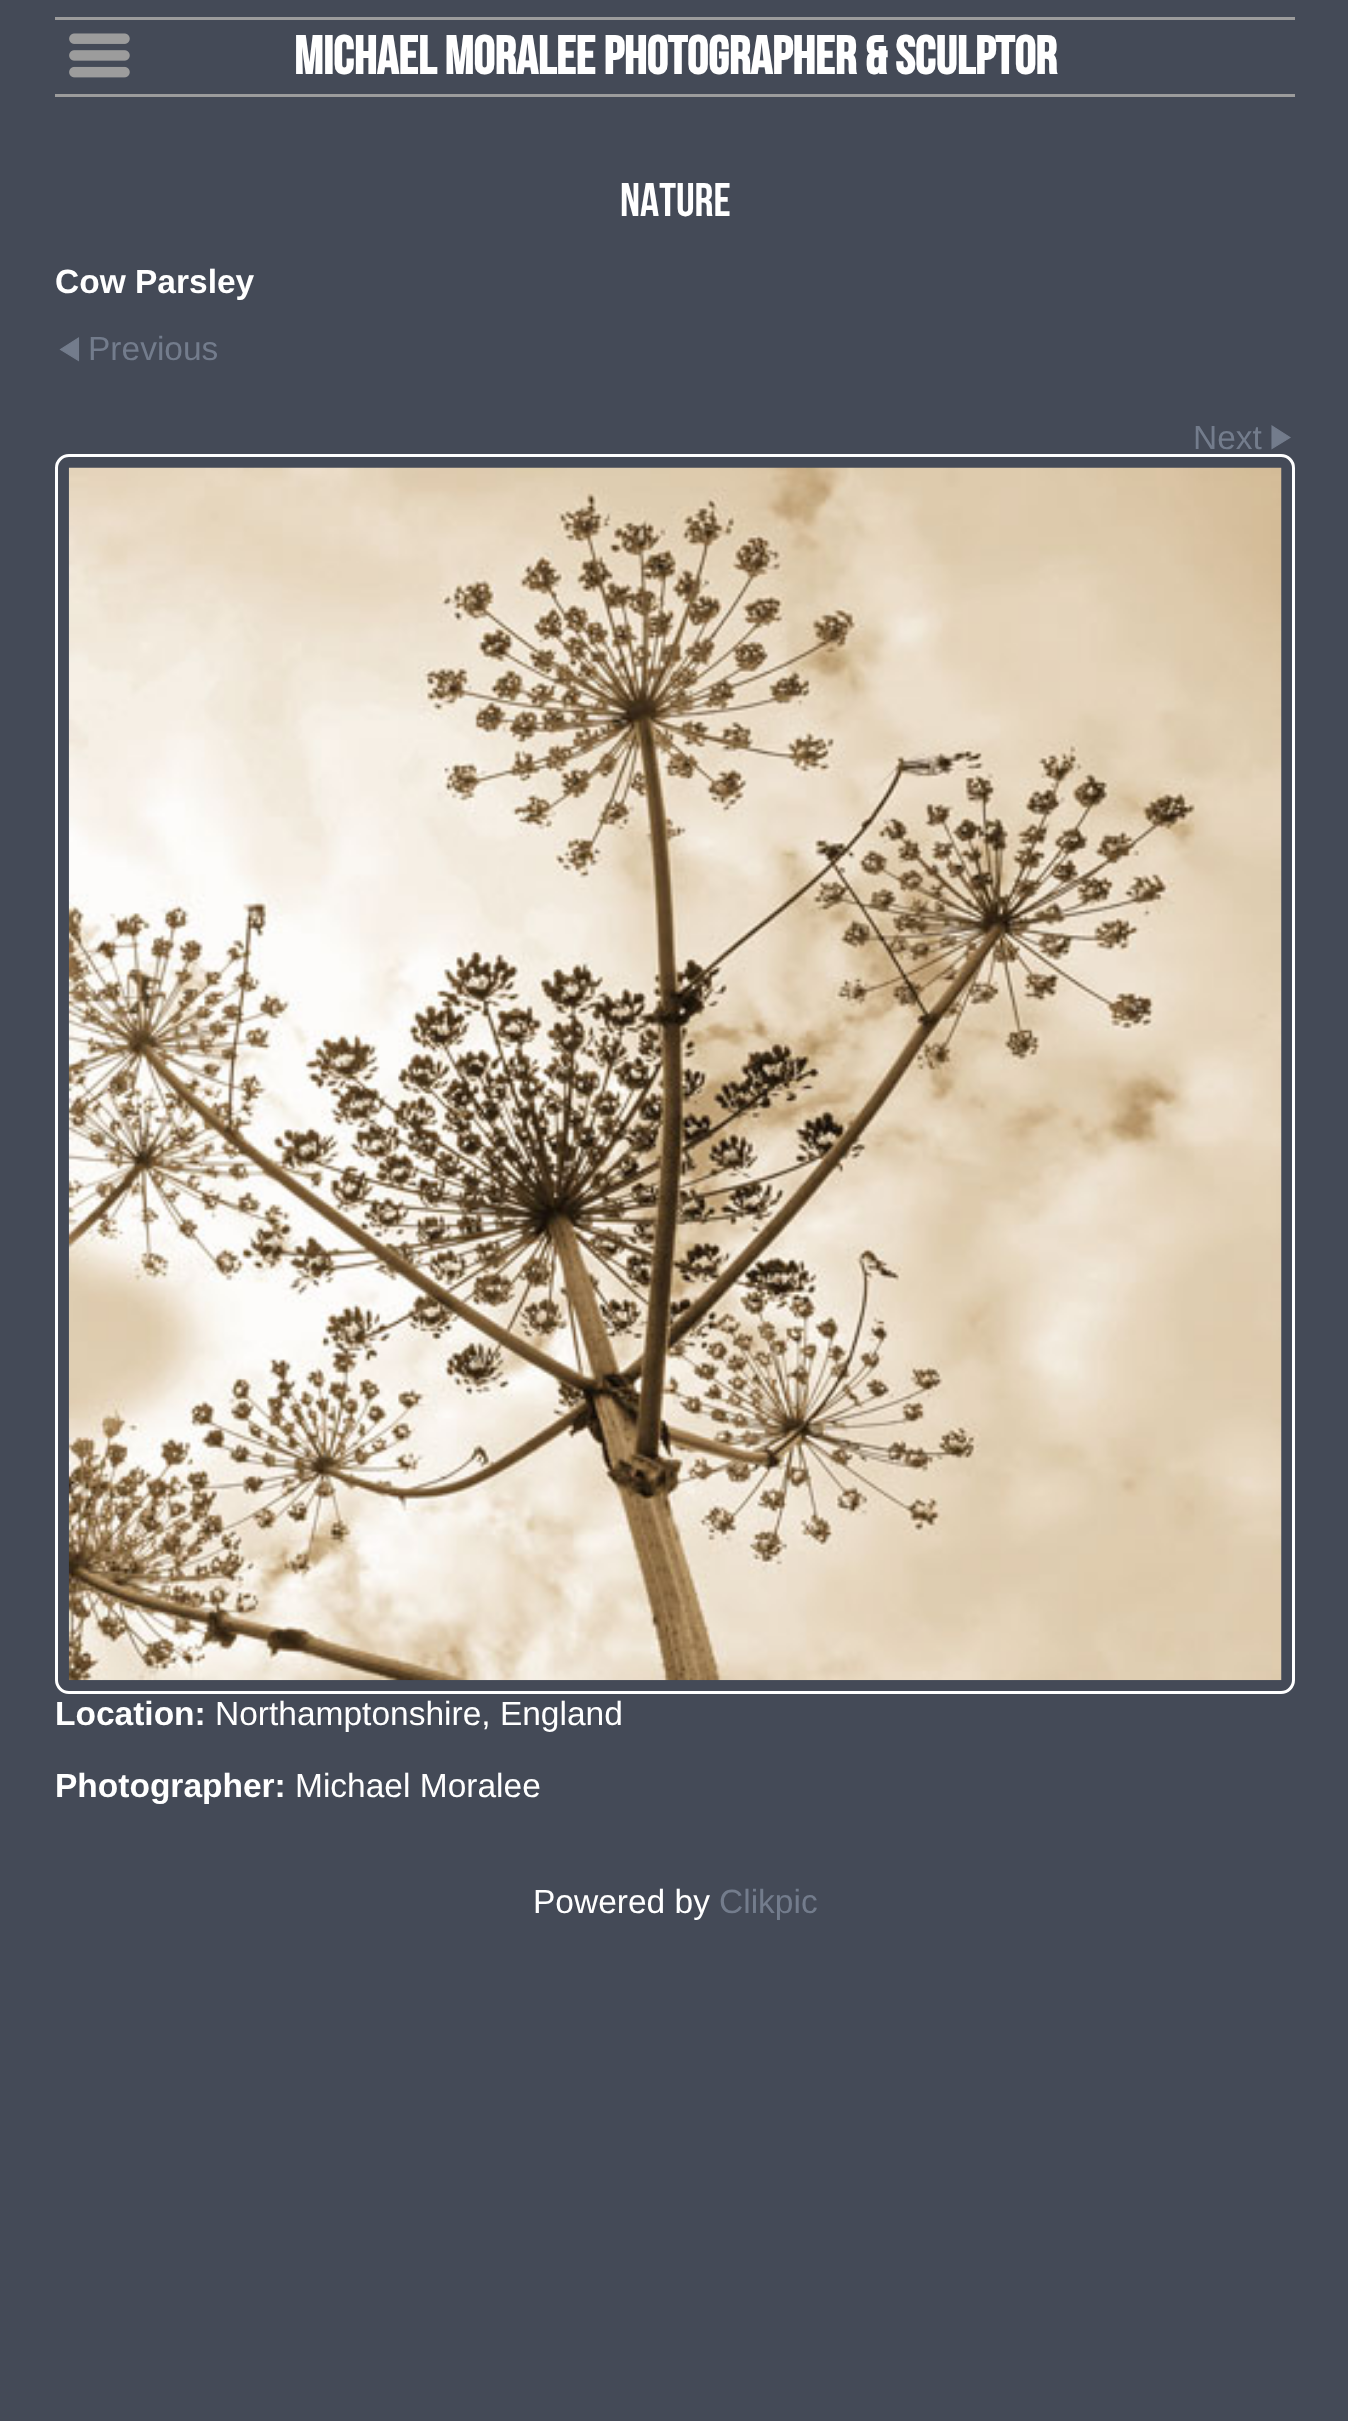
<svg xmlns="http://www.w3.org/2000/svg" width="1348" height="2421">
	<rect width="100%" height="100%" fill="#444A57" />
	<image x="69" y="33" width="61" height="45" href="assets/img1.png" />
	<rect x="55" y="17" width="1240" height="3" fill="#9C9C9C" />
	<rect x="55" y="94" width="1240" height="3" fill="#9C9C9C" />
	<text x="294" y="74" font-family="Bebas Neue" font-size="53.5" font-weight="700" fill="#FFFFFF">MICHAEL MORALEE Photographer &amp; Sculptor</text>
	<text x="620" y="216" font-family="Bebas Neue" font-size="47" fill="#FFFFFF">NATURE</text>
	<text x="55" y="293" font-family="Liberation Sans" font-size="33.5" font-weight="700" fill="#FFFFFF">Cow Parsley</text>
	<path d="M78.5 338V360.5L60.5 349.5Z" fill="#737C8C" stroke="#737C8C" stroke-width="1.1" />
	<g font-family="Liberation Sans" font-size="33.5" fill="#737C8C">
		<text x="88" y="360">Previous</text>
		<text x="1193" y="449">Next</text>
	</g>
	<path d="M1272 426V448.5L1290 437.5Z" fill="#737C8C" stroke="#737C8C" stroke-width="1.1" />
	<rect x="56.5" y="455.5" width="1237" height="1237" rx="12.5" fill="none" stroke="#FFFFFF" stroke-width="3" />
	<image x="68" y="467" width="1214" height="1214" href="assets/img2.png" />
	<text x="55" y="1725" font-family="Liberation Sans" font-size="33.5" font-weight="700" fill="#FFFFFF">Location:</text>
	<text x="215" y="1725" font-family="Liberation Sans" font-size="33.5" fill="#FFFFFF">Northamptonshire, England</text>
	<text x="55" y="1797" font-family="Liberation Sans" font-size="33.5" font-weight="700" fill="#FFFFFF">Photographer:</text>
	<g font-family="Liberation Sans" font-size="33.5" fill="#FFFFFF">
		<text x="295" y="1797">Michael Moralee</text>
		<text x="533" y="1913">Powered by</text>
	</g>
	<text x="719" y="1913" font-family="Liberation Sans" font-size="33.5" fill="#737C8C">Clikpic</text>
</svg>
